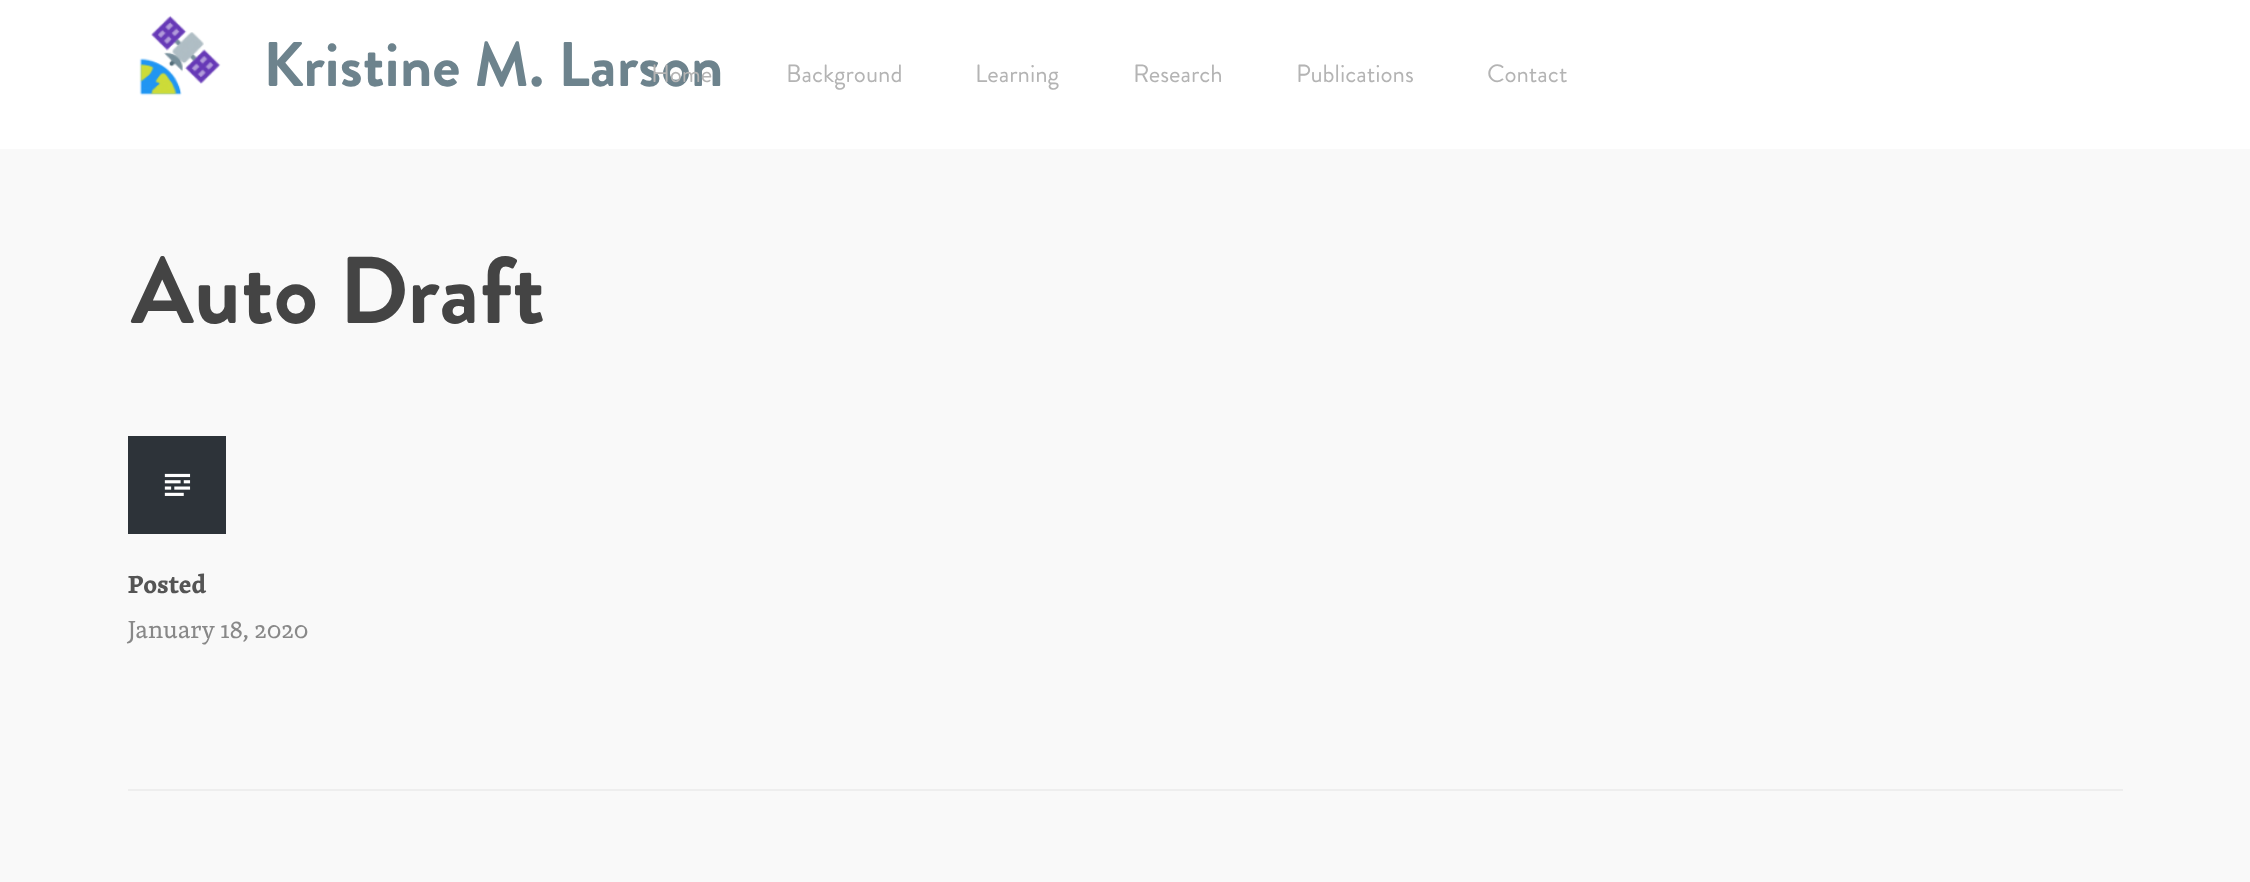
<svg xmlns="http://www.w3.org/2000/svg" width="2250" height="882">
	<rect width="100%" height="100%" fill="#F9F9F9" />
	<rect x="0" y="0" width="2250" height="149" fill="#FFFFFF" />
	<image x="139" y="15" width="82" height="81" href="assets/img1.png" />
	<text x="263" y="86" font-family="Brandon Grotesque" font-size="63" font-weight="700" fill="#6D838D">Kristine M. Larson</text>
	<g font-family="Brandon Grotesque" font-size="25" fill="#B4B4B4">
		<text x="651" y="82">Home</text>
		<text x="786" y="82">Background</text>
		<text x="975" y="82">Learning</text>
		<text x="1133" y="82">Research</text>
		<text x="1296" y="82">Publications</text>
		<text x="1487" y="82">Contact</text>
	</g>
	<text x="131" y="323" font-family="Brandon Grotesque" font-size="94.5" font-weight="700" fill="#444444">Auto Draft</text>
	<rect x="128" y="789" width="1995" height="2" fill="#EEEEEE" />
	<rect x="128" y="436" width="98" height="98" fill="#2D3339" />
	<image x="164" y="473" width="27" height="23" href="assets/img2.png" />
	<text x="128" y="593" font-family="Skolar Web" font-size="25.5" font-weight="700" fill="#555555">Posted</text>
	<text x="128" y="638" font-family="Skolar Web" font-size="25.5" fill="#888888">January 18, 2020</text>
</svg>
